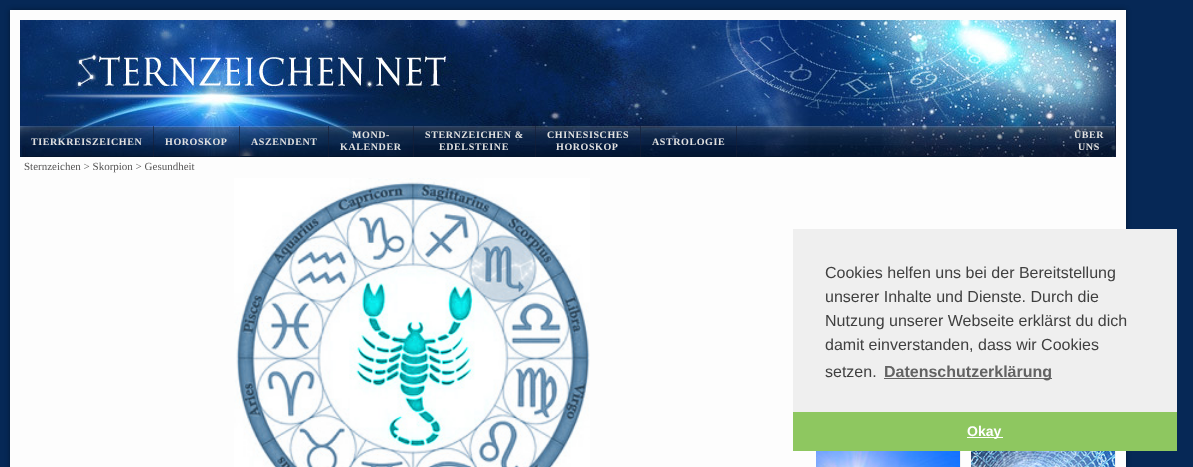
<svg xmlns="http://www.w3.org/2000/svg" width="1193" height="467">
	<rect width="100%" height="100%" fill="#062856" />
	<rect x="10" y="10" width="1116" height="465" fill="#000000" fill-opacity="0.4" filter="blur(2.5px)" />
	<rect x="10" y="10" width="1116" height="457" fill="#FDFDFD" />
	<image x="20" y="20" width="1096" height="137" href="assets/img1.png" />
	<rect x="153" y="126" width="1" height="31" fill="#161E35" fill-opacity="0.6" />
	<text x="31" y="145" font-family="Liberation Serif" font-size="10" font-weight="700" letter-spacing="0.6" fill="#E1E1E1">TIERKREISZEICHEN</text>
	<rect x="239" y="126" width="1" height="31" fill="#161E35" fill-opacity="0.6" />
	<text x="165" y="145" font-family="Liberation Serif" font-size="10" font-weight="700" letter-spacing="0.6" fill="#E1E1E1">HOROSKOP</text>
	<rect x="328" y="126" width="1" height="31" fill="#161E35" fill-opacity="0.6" />
	<text x="251" y="145" font-family="Liberation Serif" font-size="10" font-weight="700" letter-spacing="0.6" fill="#E1E1E1">ASZENDENT</text>
	<rect x="413" y="126" width="1" height="31" fill="#161E35" fill-opacity="0.6" />
	<g font-family="Liberation Serif" font-size="10" font-weight="700" letter-spacing="0.6" fill="#E1E1E1">
		<text x="352" y="138">MOND-</text>
		<text x="340" y="150">KALENDER</text>
	</g>
	<rect x="535" y="126" width="1" height="31" fill="#161E35" fill-opacity="0.6" />
	<g font-family="Liberation Serif" font-size="10" font-weight="700" letter-spacing="0.6" fill="#E1E1E1">
		<text x="425" y="138">STERNZEICHEN &amp;</text>
		<text x="439" y="150">EDELSTEINE</text>
	</g>
	<rect x="640" y="126" width="1" height="31" fill="#161E35" fill-opacity="0.6" />
	<g font-family="Liberation Serif" font-size="10" font-weight="700" letter-spacing="0.6" fill="#E1E1E1">
		<text x="547" y="138">CHINESISCHES</text>
		<text x="556" y="150">HOROSKOP</text>
	</g>
	<rect x="736" y="126" width="1" height="31" fill="#161E35" fill-opacity="0.6" />
	<text x="652" y="145" font-family="Liberation Serif" font-size="10" font-weight="700" letter-spacing="0.6" fill="#E1E1E1">ASTROLOGIE</text>
	<rect x="1115" y="126" width="1" height="31" fill="#161E35" fill-opacity="0.6" />
	<g font-family="Liberation Serif" font-size="10" font-weight="700" letter-spacing="0.6" fill="#E1E1E1">
		<text x="1074" y="138">ÜBER</text>
		<text x="1078" y="150">UNS</text>
	</g>
	<text x="24" y="170" font-family="Liberation Serif" font-size="11" fill="#585757">Sternzeichen &gt; Skorpion &gt; Gesundheit</text>
	<image x="234" y="178" width="356" height="289" href="assets/img2.png" />
	<rect x="960" y="451" width="1" height="16" fill="#F0F0F0" />
	<image x="816" y="451" width="144" height="16" href="assets/img3.png" />
	<rect x="1115" y="451" width="1" height="16" fill="#F0F0F0" />
	<image x="971" y="451" width="144" height="16" href="assets/img4.png" />
	<rect x="793" y="229" width="384" height="183" fill="#EFEFEF" />
	<g font-family="Liberation Sans" font-size="16" fill="#404040">
		<text x="825" y="278">Cookies helfen uns bei der Bereitstellung</text>
		<text x="825" y="302">unserer Inhalte und Dienste. Durch die</text>
		<text x="825" y="326">Nutzung unserer Webseite erklärst du dich</text>
		<text x="825" y="350">damit einverstanden, dass wir Cookies</text>
		<text x="825" y="377">setzen.</text>
	</g>
	<rect x="884" y="378" width="168" height="1" fill="#636363" />
	<text x="884" y="377" font-family="Liberation Sans" font-size="16" font-weight="700" fill="#636363">Datenschutzerklärung</text>
	<rect x="793" y="412" width="384" height="39" fill="#8EC760" />
	<rect x="967" y="437" width="36" height="1" fill="#FFFFFF" />
	<text x="967" y="436" font-family="Liberation Sans" font-size="14" font-weight="700" fill="#FFFFFF">Okay</text>
</svg>
